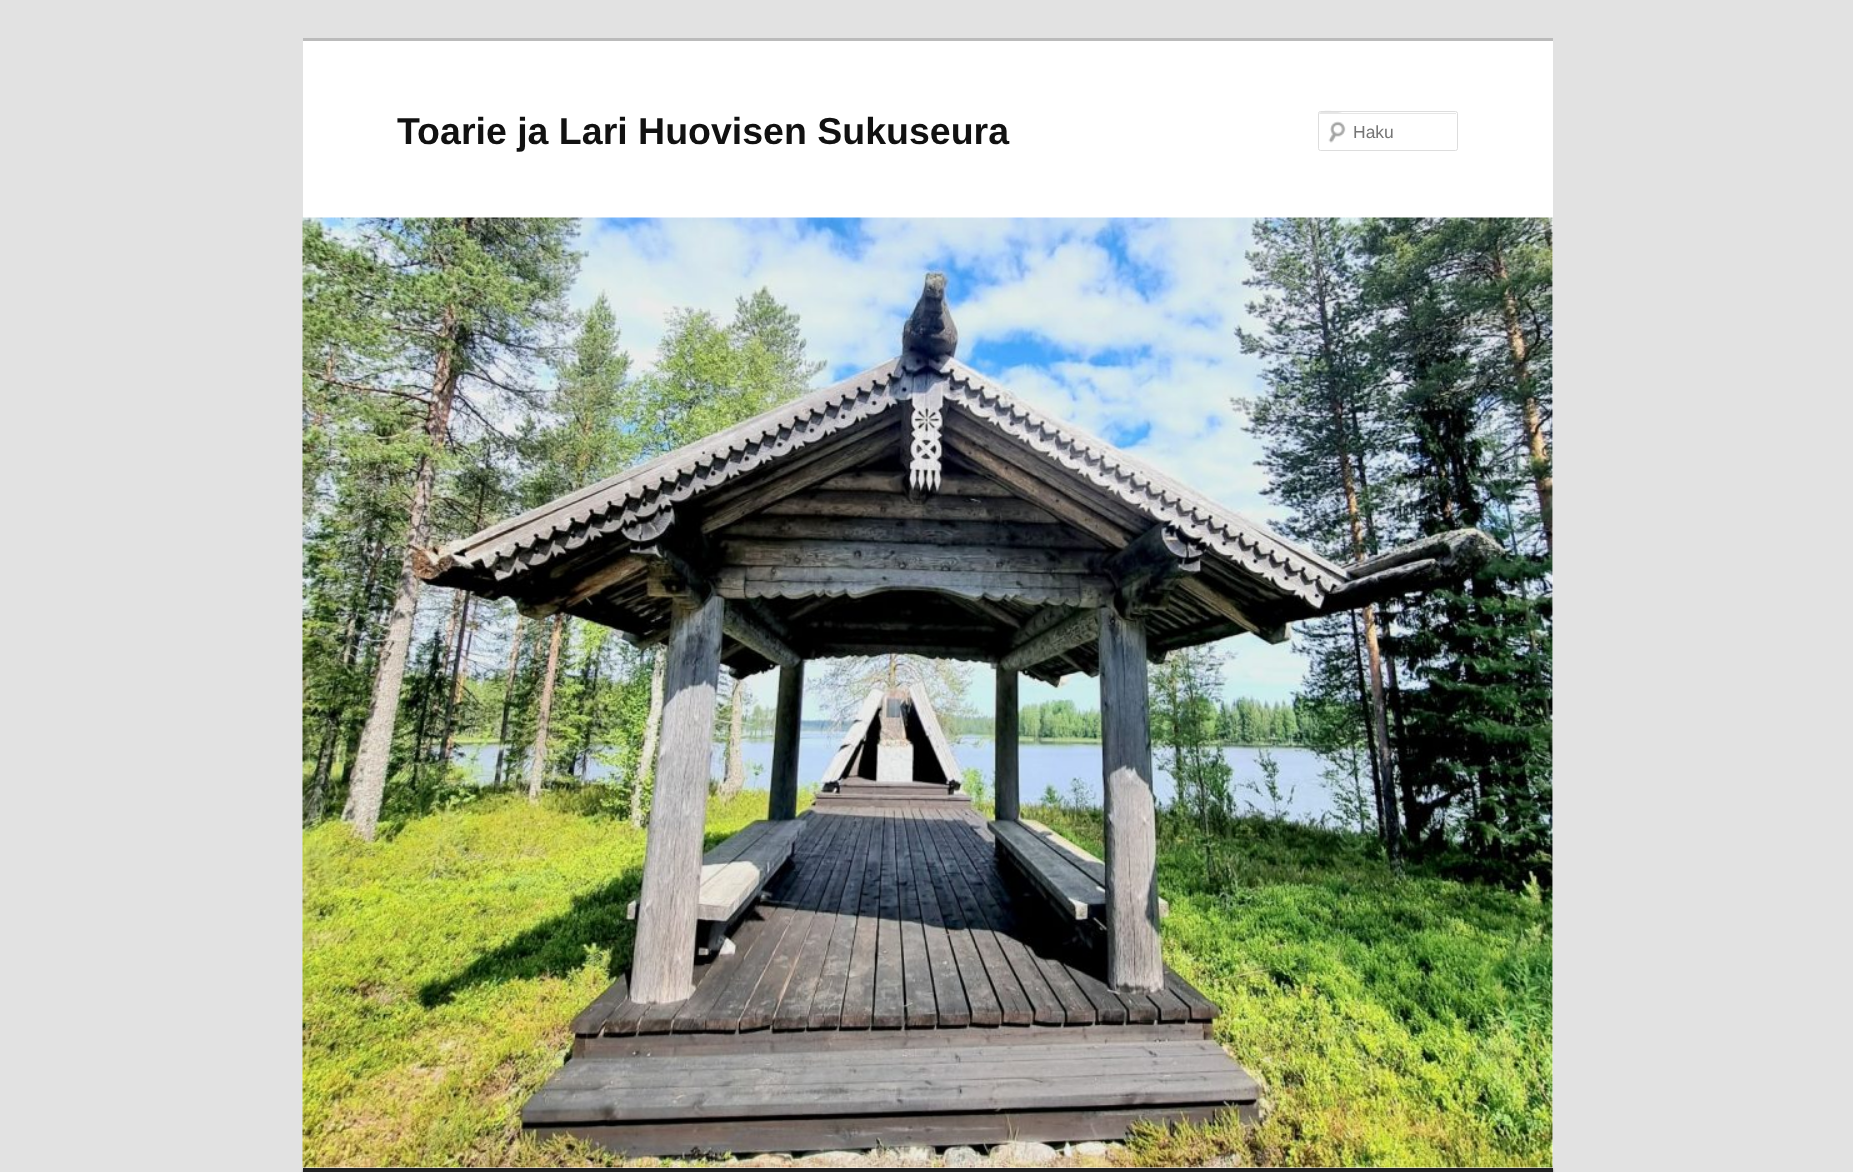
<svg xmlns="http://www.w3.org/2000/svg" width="1853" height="1172">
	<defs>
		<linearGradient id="g1" gradientUnits="userSpaceOnUse" x1="928" y1="1167" x2="928" y2="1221"><stop offset="0" stop-color="#252525" /><stop offset="1" stop-color="#0A0A0A" /></linearGradient>
	</defs>
	<rect width="100%" height="100%" fill="#E2E2E2" />
	<rect x="303" y="41" width="1250" height="1127" fill="#FFFFFF" />
	<rect x="303" y="38" width="1250" height="3" fill="#BBBBBB" />
	<text x="397" y="144" font-family="Liberation Sans" font-size="37.5" font-weight="700" fill="#111111">Toarie ja Lari Huovisen Sukuseura</text>
	<image x="1328" y="121" width="18" height="22" href="assets/img1.png" />
	<path d="M1320 114H1455C1456 114 1456 114 1456 115V113H1342C1342 113 1319 107 1319 115C1319 114 1319 114 1320 114Z" fill="#E6E6E6" />
	<rect x="1318.5" y="111.5" width="139" height="39" rx="2" fill="none" stroke="#DDDDDD" />
	<text x="1353" y="138" font-family="Liberation Sans" font-size="17.5" fill="#757575">Haku</text>
	<rect x="303" y="1169" width="1250" height="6" fill="#000000" fill-opacity="0.4" filter="blur(1px)" />
	<image x="302" y="217" width="1251" height="951" href="assets/img2.png" />
	<rect x="303" y="1168" width="1250" height="4" fill="url(#g1)" />
</svg>
